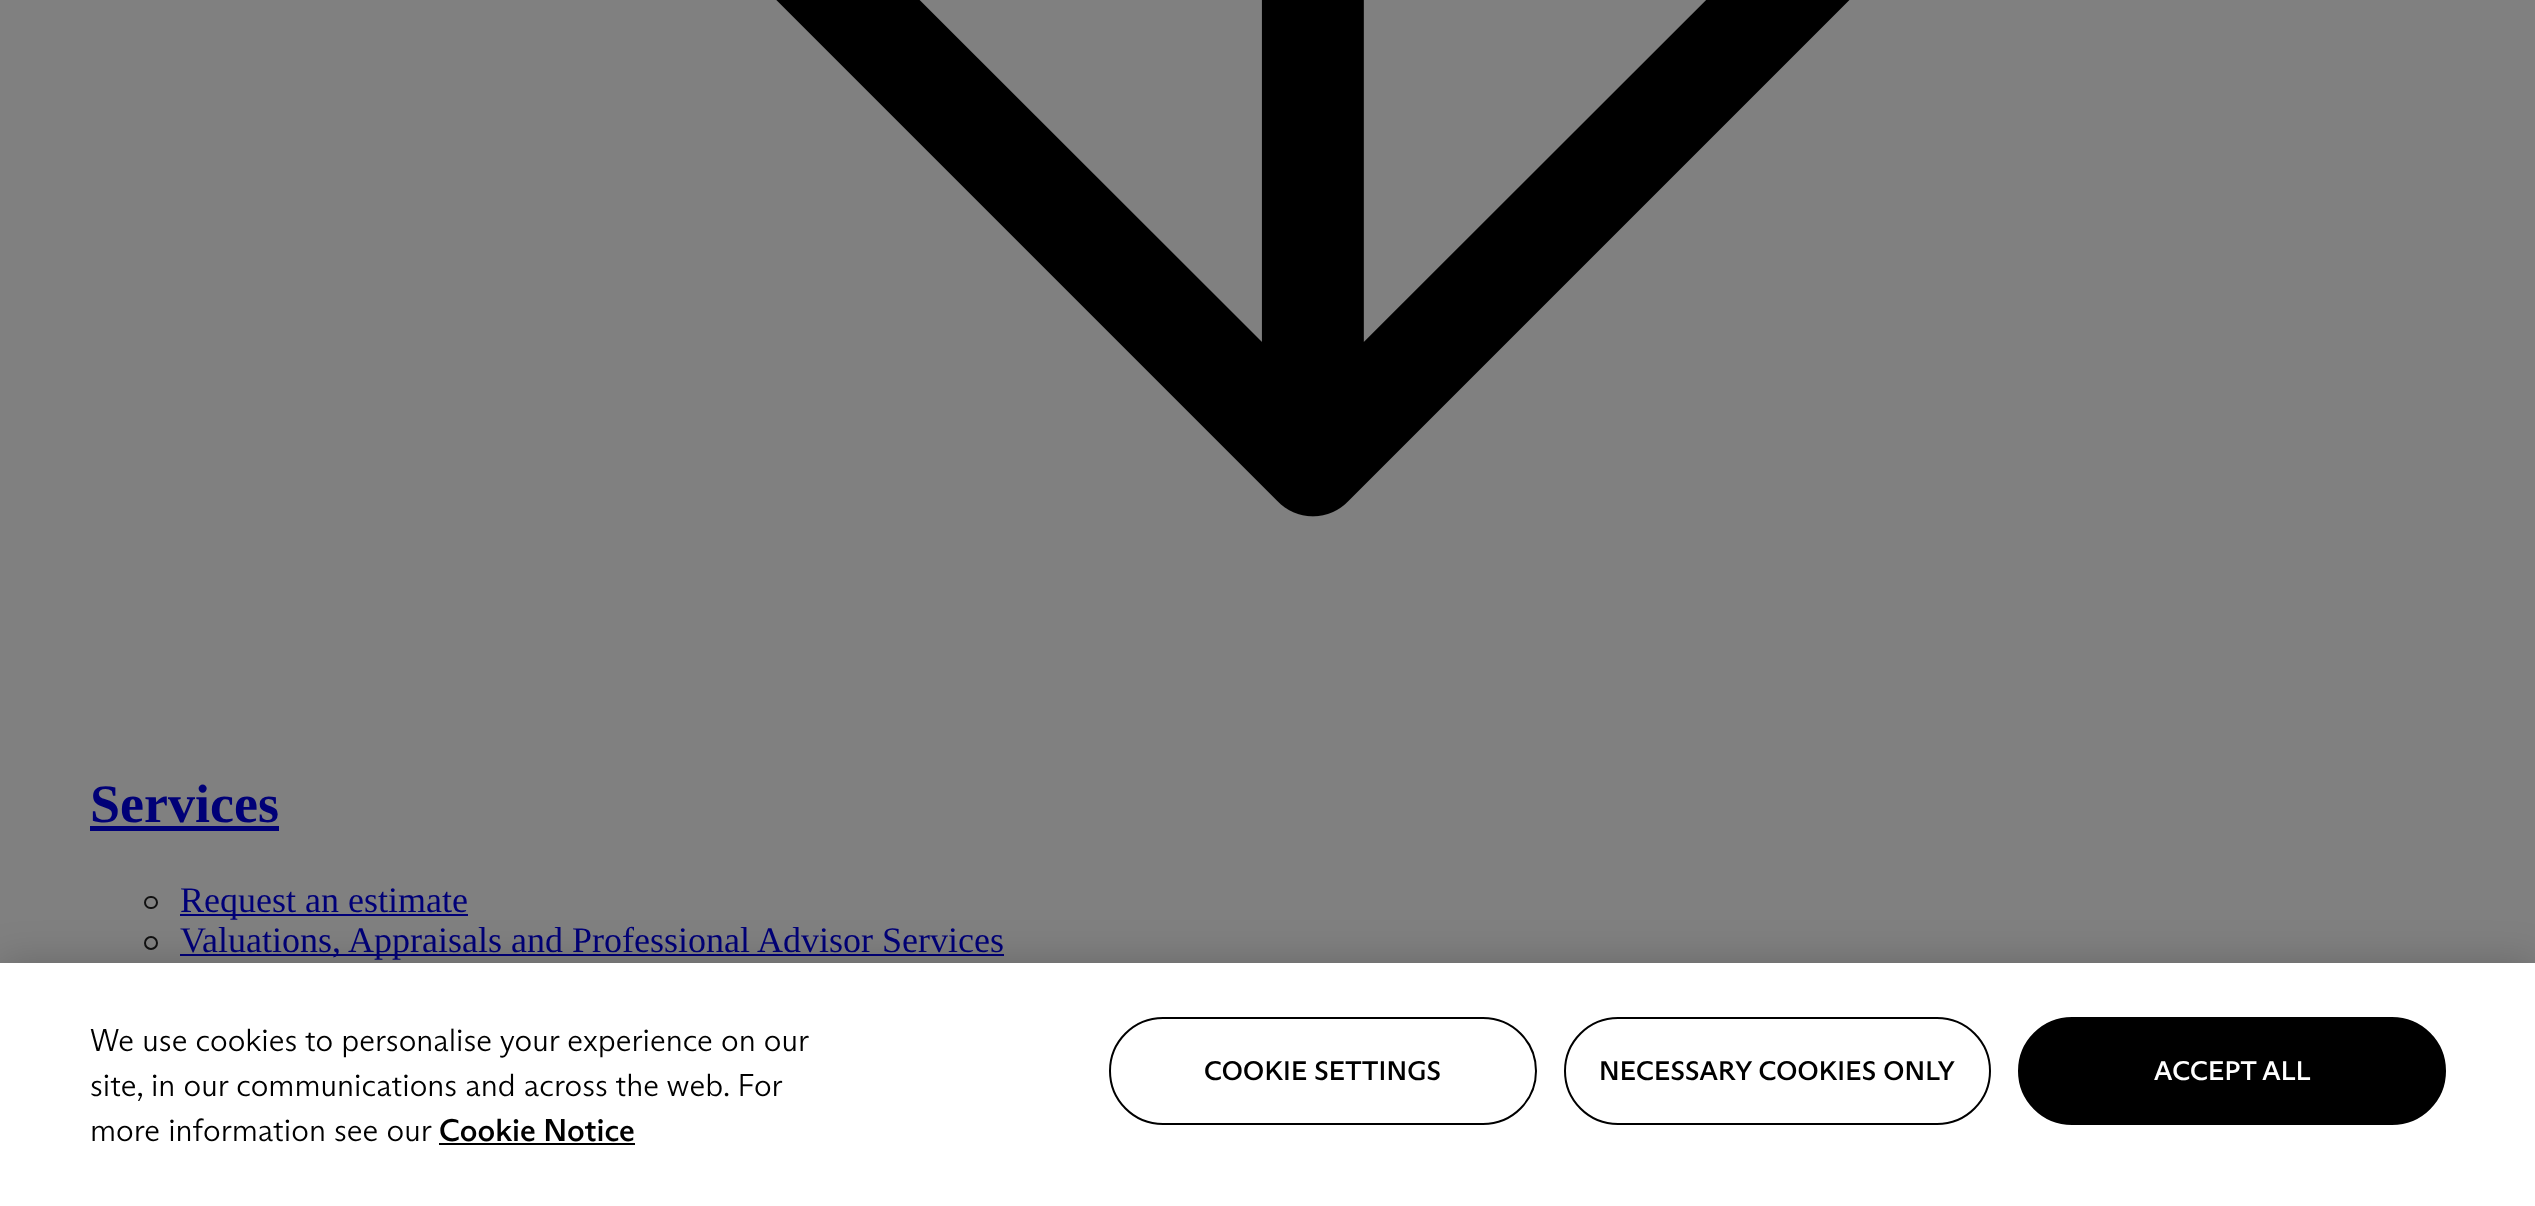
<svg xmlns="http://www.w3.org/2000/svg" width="2535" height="1206">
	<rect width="100%" height="100%" fill="#808080" />
	<image x="776" y="0" width="1074" height="517" href="assets/img1.png" />
	<text x="90" y="822" font-family="Liberation Serif" font-size="54" font-weight="700" fill="#000077">Services</text>
	<rect x="90" y="826" width="189" height="5" fill="#000077" />
	<rect x="145" y="897" width="12" height="11" rx="5.5" fill="none" stroke="#111111" stroke-width="2" />
	<rect x="180" y="914" width="288" height="2" fill="#000077" />
	<text x="180" y="912" font-family="Liberation Serif" font-size="36" fill="#000077">Request an estimate</text>
	<circle cx="151" cy="943" r="6" fill="none" stroke="#111111" stroke-width="2" />
	<rect x="180" y="954" width="824" height="2" fill="#000077" />
	<text x="180" y="952" font-family="Liberation Serif" font-size="36" fill="#000077">Valuations, Appraisals and Professional Advisor Services</text>
	<rect x="0" y="963" width="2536" height="243" fill="#000000" fill-opacity="0.2" filter="blur(20px)" />
	<rect x="0" y="963" width="2535" height="243" fill="#FFFFFF" />
	<g font-family="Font" font-size="31.5" font-weight="300" fill="#000000">
		<text x="90" y="1051">We use cookies to personalise your experience on our</text>
		<text x="90" y="1096">site, in our communications and across the web. For</text>
		<text x="90" y="1141">more information see our</text>
	</g>
	<text x="439" y="1141" font-family="Font" font-size="31.5" font-weight="500" fill="#000000">Cookie Notice</text>
	<rect x="439" y="1143" width="196" height="2" fill="#000000" />
	<rect x="1110" y="1018" width="426" height="106" rx="53" fill="none" stroke="#000000" stroke-width="2" />
	<text x="1204" y="1080" font-family="Font" font-size="27" font-weight="500" letter-spacing="0.25" fill="#000000">COOKIE SETTINGS</text>
	<rect x="1565" y="1018" width="425" height="106" rx="53" fill="none" stroke="#000000" stroke-width="2" />
	<text x="1599" y="1080" font-family="Font" font-size="27" font-weight="500" letter-spacing="0.25" fill="#000000">NECESSARY COOKIES ONLY</text>
	<rect x="2019" y="1018" width="426" height="106" rx="53" fill="#000000" stroke="#000000" stroke-width="2" />
	<text x="2154" y="1080" font-family="Font" font-size="27" font-weight="500" letter-spacing="0.25" fill="#FFFFFF">ACCEPT ALL</text>
</svg>
